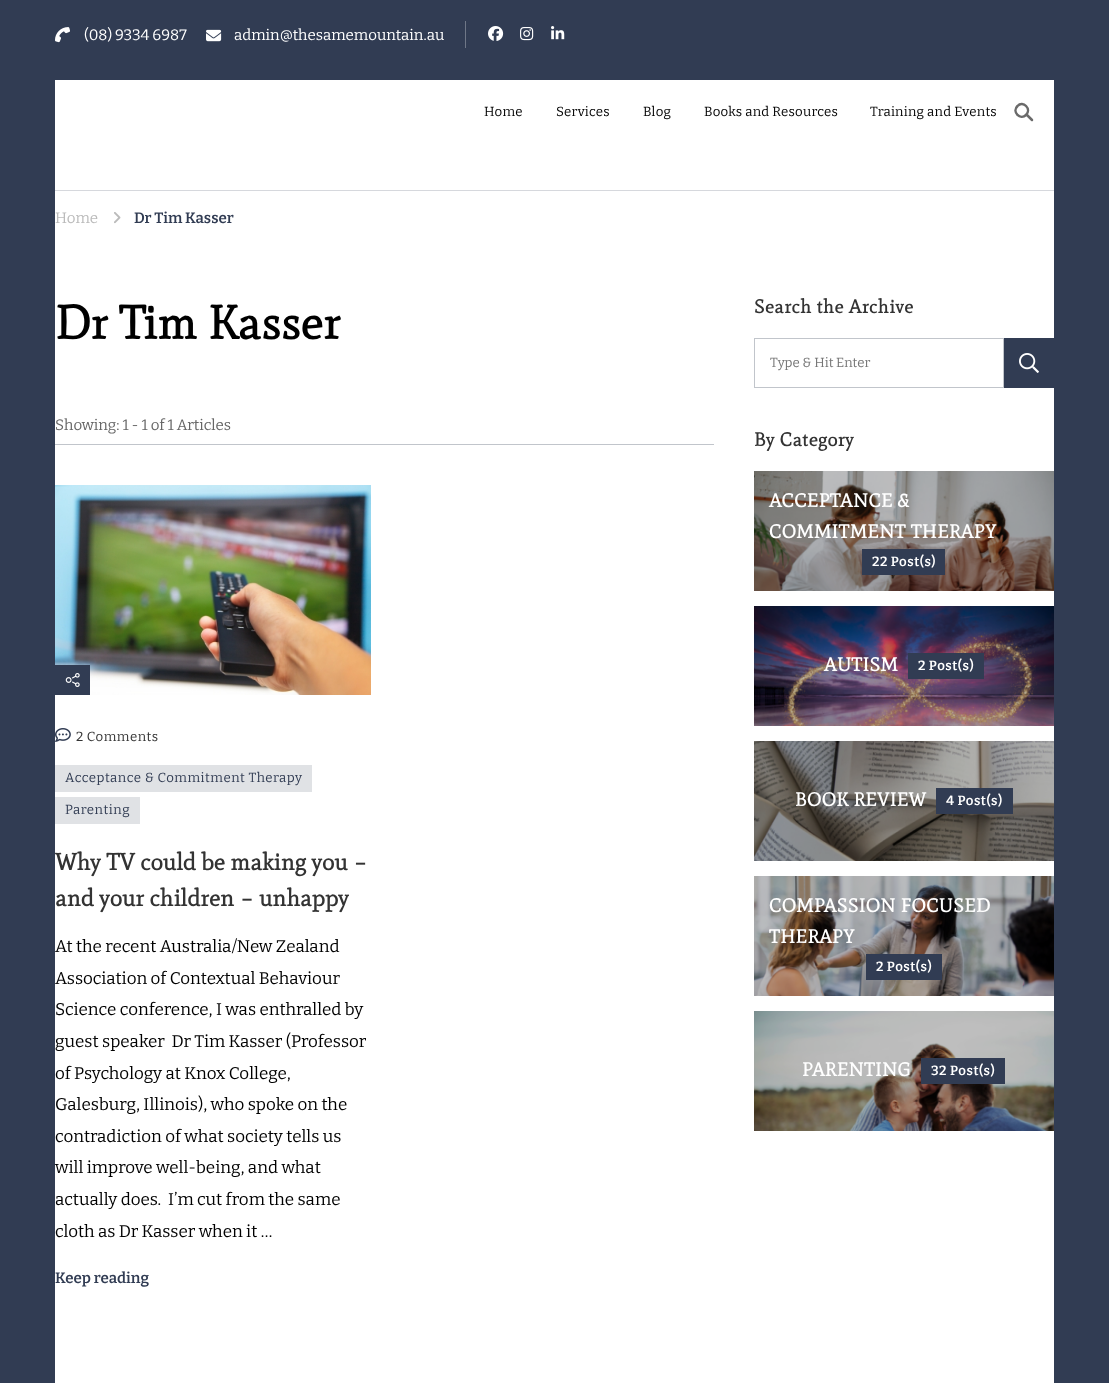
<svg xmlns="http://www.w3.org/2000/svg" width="1109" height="1383">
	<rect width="100%" height="100%" fill="#313C53" />
	<rect x="55" y="80" width="999" height="1303" fill="#FFFFFF" />
	<image x="55" y="27" width="15" height="16" href="assets/img1.png" />
	<text x="84" y="40" font-family="Bitter" font-size="15.1" fill="#FFFFFF">(08) 9334 6987</text>
	<image x="206" y="29" width="16" height="13" href="assets/img2.png" />
	<text x="234" y="40" font-family="Bitter" font-size="15.1" fill="#FFFFFF">admin@thesamemountain.au</text>
	<rect x="465" y="21" width="1" height="27" fill="#6F7787" />
	<image x="488" y="26" width="16" height="15" href="assets/img3.png" />
	<image x="520" y="27" width="14" height="14" href="assets/img4.png" />
	<image x="551" y="26" width="14" height="14" href="assets/img5.png" />
	<g font-family="Bitter" font-size="13.25" letter-spacing="0.25" fill="#000000">
		<text x="484" y="116">Home</text>
		<text x="556" y="116">Services</text>
		<text x="643" y="116">Blog</text>
		<text x="704" y="116">Books and Resources</text>
		<text x="870" y="116">Training and Events</text>
	</g>
	<path d="M1017.5 106C1023 100 1032 109 1026 115C1020.5 120.5 1011.5 112 1017.5 106Z" fill="none" stroke="#6A6A6A" stroke-width="2.5" />
	<path d="M1027 115L1032 120" fill="none" stroke="#6A6A6A" stroke-width="2.5" stroke-linecap="round" />
	<rect x="55" y="190" width="999" height="1" fill="#D6D8DD" />
	<text x="55" y="223" font-family="Bitter" font-size="15.1" fill="#BBBBBB">Home</text>
	<image x="114" y="212" width="7" height="12" href="assets/img6.png" />
	<text x="134" y="223" font-family="Bitter" font-size="15.1" font-weight="600" fill="#313C53">Dr Tim Kasser</text>
	<text x="55" y="339" font-family="Mate" font-size="47.25" font-weight="700" fill="#000000">Dr Tim Kasser</text>
	<rect x="55" y="444" width="659" height="1" fill="#C1C5CB" />
	<text x="55" y="430" font-family="Bitter" font-size="15.1" fill="#666666">Showing: 1 - 1 of 1 Articles</text>
	<image x="55" y="485" width="316" height="210" href="assets/img7.png" />
	<rect x="55" y="665" width="35" height="30" fill="#313C53" />
	<image x="65" y="673" width="15" height="14" href="assets/img8.png" />
	<image x="55" y="728" width="16" height="14" href="assets/img9.png" />
	<text x="76" y="741" font-family="Bitter" font-size="13.25" letter-spacing="0.5" fill="#333333">2 Comments</text>
	<rect x="55" y="765" width="257" height="27" fill="#E0E2E5" />
	<text x="65" y="782" font-family="Bitter" font-size="13.25" letter-spacing="0.5" fill="#313C53">Acceptance &amp; Commitment Therapy</text>
	<rect x="55" y="797" width="85" height="27" fill="#E0E2E5" />
	<text x="65" y="814" font-family="Bitter" font-size="13.25" letter-spacing="0.5" fill="#313C53">Parenting</text>
	<g font-family="Mate" font-size="23.6" font-weight="700" fill="#333333">
		<text x="55" y="870">Why TV could be making you –</text>
		<text x="55" y="906">and your children – unhappy</text>
	</g>
	<g font-family="Bitter" font-size="17" fill="#000000">
		<text x="55" y="952">At the recent Australia/New Zealand</text>
		<text x="55" y="984">Association of Contextual Behaviour</text>
		<text x="55" y="1015">Science conference, I was enthralled by</text>
		<text x="55" y="1047" xml:space="preserve">guest speaker  Dr Tim Kasser (Professor</text>
		<text x="55" y="1079">of Psychology at Knox College,</text>
		<text x="55" y="1110">Galesburg, Illinois), who spoke on the</text>
		<text x="55" y="1142">contradiction of what society tells us</text>
		<text x="55" y="1173">will improve well-being, and what</text>
		<text x="55" y="1205" xml:space="preserve">actually does.  I’m cut from the same</text>
		<text x="55" y="1237">cloth as Dr Kasser when it …</text>
	</g>
	<text x="55" y="1283" font-family="Bitter" font-size="15.1" font-weight="600" fill="#313C53">Keep reading</text>
	<text x="754" y="313" font-family="Mate" font-size="18.9" font-weight="700" letter-spacing="0.5" fill="#333333">Search the Archive</text>
	<rect x="754.5" y="338.5" width="249" height="49" fill="none" stroke="#C1C5CB" />
	<text x="770" y="367" font-family="Bitter" font-size="13.25" fill="#757575">Type &amp; Hit Enter</text>
	<rect x="1004" y="338" width="50" height="50" fill="#313C53" />
	<image x="1019" y="353" width="20" height="20" href="assets/img10.png" />
	<text x="754" y="446" font-family="Mate" font-size="18.9" font-weight="700" letter-spacing="0.5" fill="#333333">By Category</text>
	<image x="754" y="471" width="300" height="120" href="assets/img11.png" />
	<g font-family="Mate" font-size="18.9" font-weight="700" letter-spacing="0.5" fill="#FFFFFF">
		<text x="769" y="507">ACCEPTANCE &amp;</text>
		<text x="769" y="538">COMMITMENT THERAPY</text>
	</g>
	<rect x="862" y="549" width="83" height="26" fill="#313C53" />
	<text x="872" y="566" font-family="Bitter" font-size="13.25" font-weight="600" letter-spacing="0.5" fill="#FFFFFF">22 Post(s)</text>
	<image x="754" y="606" width="300" height="120" href="assets/img12.png" />
	<text x="824" y="671" font-family="Mate" font-size="18.9" font-weight="700" letter-spacing="0.5" fill="#FFFFFF">AUTISM</text>
	<rect x="908" y="653" width="76" height="26" fill="#313C53" />
	<text x="918" y="670" font-family="Bitter" font-size="13.25" font-weight="600" letter-spacing="0.5" fill="#FFFFFF">2 Post(s)</text>
	<image x="754" y="741" width="300" height="120" href="assets/img13.png" />
	<text x="795" y="806" font-family="Mate" font-size="18.9" font-weight="700" letter-spacing="0.5" fill="#FFFFFF">BOOK REVIEW</text>
	<rect x="936" y="788" width="77" height="26" fill="#313C53" />
	<text x="946" y="805" font-family="Bitter" font-size="13.25" font-weight="600" letter-spacing="0.5" fill="#FFFFFF">4 Post(s)</text>
	<image x="754" y="876" width="300" height="120" href="assets/img14.png" />
	<g font-family="Mate" font-size="18.9" font-weight="700" letter-spacing="0.5" fill="#FFFFFF">
		<text x="769" y="912">COMPASSION FOCUSED</text>
		<text x="769" y="943">THERAPY</text>
	</g>
	<rect x="866" y="954" width="76" height="26" fill="#313C53" />
	<text x="876" y="971" font-family="Bitter" font-size="13.25" font-weight="600" letter-spacing="0.5" fill="#FFFFFF">2 Post(s)</text>
	<image x="754" y="1011" width="300" height="120" href="assets/img15.png" />
	<text x="802" y="1076" font-family="Mate" font-size="18.9" font-weight="700" letter-spacing="0.5" fill="#FFFFFF">PARENTING</text>
	<rect x="921" y="1058" width="84" height="26" fill="#313C53" />
	<text x="931" y="1075" font-family="Bitter" font-size="13.25" font-weight="600" letter-spacing="0.5" fill="#FFFFFF">32 Post(s)</text>
</svg>
